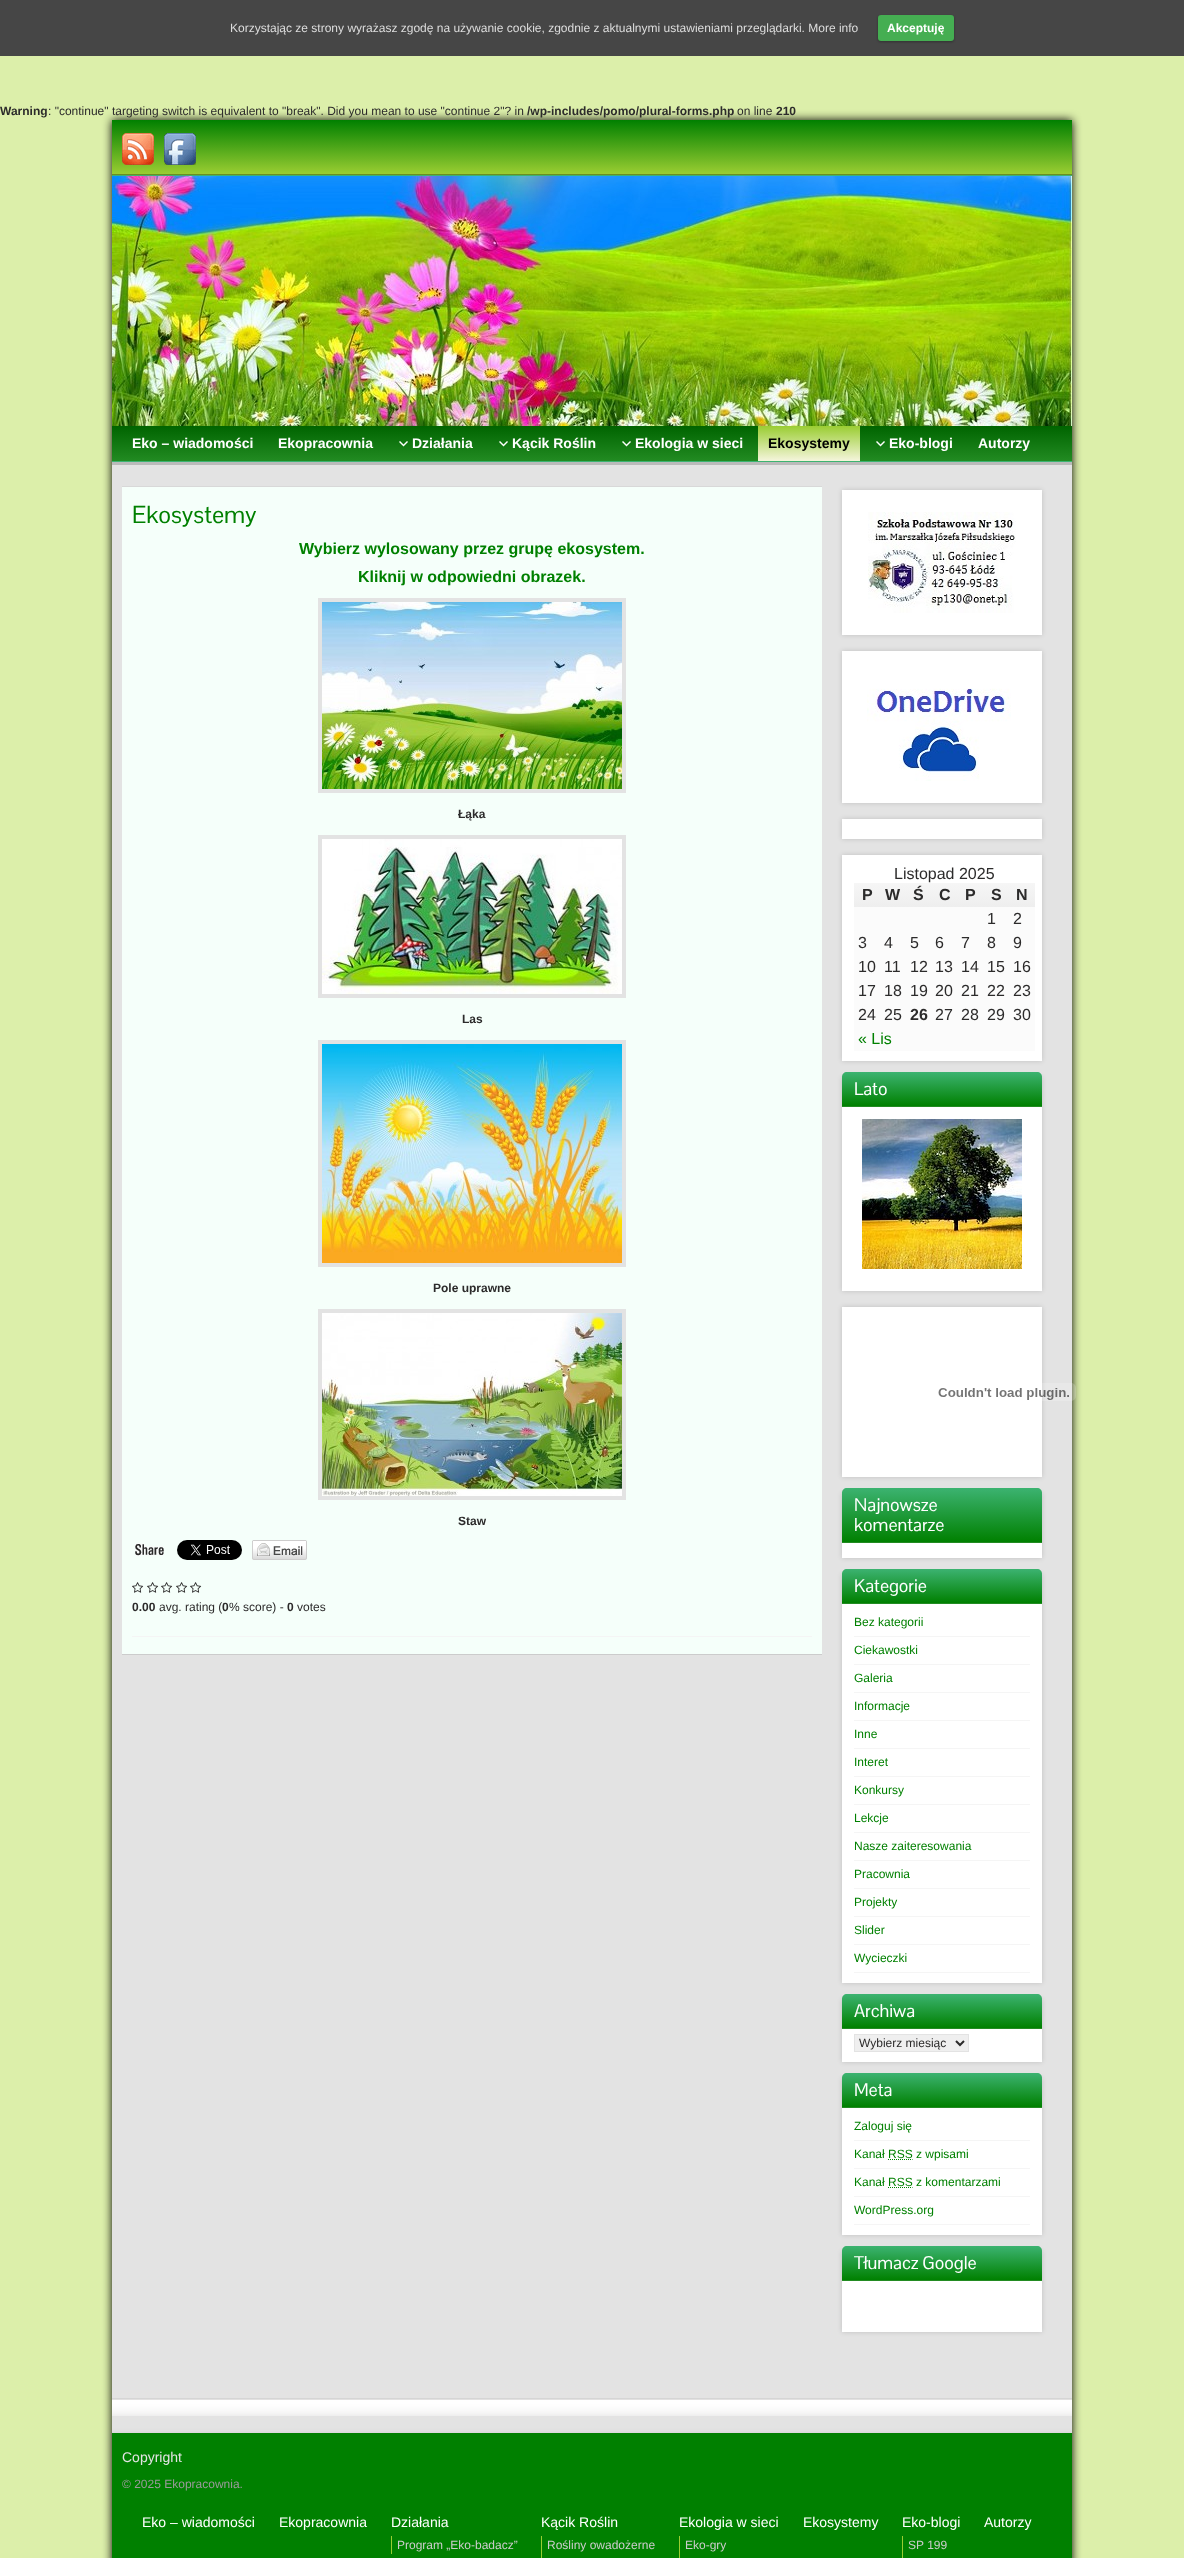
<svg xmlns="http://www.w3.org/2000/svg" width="1184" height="2558">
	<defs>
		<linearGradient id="g1" gradientUnits="userSpaceOnUse" x1="592" y1="120" x2="592" y2="174"><stop offset="0" stop-color="#008000" /><stop offset="1" stop-color="#9ACD32" /></linearGradient>
		<linearGradient id="g2" gradientUnits="userSpaceOnUse" x1="592" y1="426" x2="592" y2="461"><stop offset="0" stop-color="#006400" /><stop offset="1" stop-color="#228B22" /></linearGradient>
		<linearGradient id="g3" gradientUnits="userSpaceOnUse" x1="809" y1="426" x2="809" y2="461"><stop offset="0" stop-color="#9ACD32" /><stop offset="1" stop-color="#F5F5DC" /></linearGradient>
		<linearGradient id="g4" gradientUnits="userSpaceOnUse" x1="867" y1="883" x2="867" y2="907"><stop offset="0" stop-color="#F6F6F6" /><stop offset="1" stop-color="#EEEEEE" /></linearGradient>
		<linearGradient id="g5" gradientUnits="userSpaceOnUse" x1="893" y1="883" x2="893" y2="907"><stop offset="0" stop-color="#F6F6F6" /><stop offset="1" stop-color="#EEEEEE" /></linearGradient>
		<linearGradient id="g6" gradientUnits="userSpaceOnUse" x1="919" y1="883" x2="919" y2="907"><stop offset="0" stop-color="#F6F6F6" /><stop offset="1" stop-color="#EEEEEE" /></linearGradient>
		<linearGradient id="g7" gradientUnits="userSpaceOnUse" x1="944" y1="883" x2="944" y2="907"><stop offset="0" stop-color="#F6F6F6" /><stop offset="1" stop-color="#EEEEEE" /></linearGradient>
		<linearGradient id="g8" gradientUnits="userSpaceOnUse" x1="970" y1="883" x2="970" y2="907"><stop offset="0" stop-color="#F6F6F6" /><stop offset="1" stop-color="#EEEEEE" /></linearGradient>
		<linearGradient id="g9" gradientUnits="userSpaceOnUse" x1="996" y1="883" x2="996" y2="907"><stop offset="0" stop-color="#F6F6F6" /><stop offset="1" stop-color="#EEEEEE" /></linearGradient>
		<linearGradient id="g10" gradientUnits="userSpaceOnUse" x1="1022" y1="883" x2="1022" y2="907"><stop offset="0" stop-color="#F6F6F6" /><stop offset="1" stop-color="#EEEEEE" /></linearGradient>
		<linearGradient id="g11" gradientUnits="userSpaceOnUse" x1="942" y1="1072" x2="942" y2="1106"><stop offset="0" stop-color="#3CB371" /><stop offset="1" stop-color="#008000" /></linearGradient>
		<linearGradient id="g12" gradientUnits="userSpaceOnUse" x1="942" y1="1488" x2="942" y2="1542"><stop offset="0" stop-color="#3CB371" /><stop offset="1" stop-color="#008000" /></linearGradient>
		<linearGradient id="g13" gradientUnits="userSpaceOnUse" x1="942" y1="1569" x2="942" y2="1603"><stop offset="0" stop-color="#3CB371" /><stop offset="1" stop-color="#008000" /></linearGradient>
		<linearGradient id="g14" gradientUnits="userSpaceOnUse" x1="942" y1="1994" x2="942" y2="2028"><stop offset="0" stop-color="#3CB371" /><stop offset="1" stop-color="#008000" /></linearGradient>
		<linearGradient id="g15" gradientUnits="userSpaceOnUse" x1="942" y1="2073" x2="942" y2="2107"><stop offset="0" stop-color="#3CB371" /><stop offset="1" stop-color="#008000" /></linearGradient>
		<linearGradient id="g16" gradientUnits="userSpaceOnUse" x1="942" y1="2246" x2="942" y2="2280"><stop offset="0" stop-color="#3CB371" /><stop offset="1" stop-color="#008000" /></linearGradient>
	</defs>
	<rect width="100%" height="100%" fill="#DCEFAA" />
	<rect x="0" y="0" width="1184" height="56" fill="#464646" />
	<text x="230" y="32" font-family="Liberation Sans" font-size="12" fill="#DDDDDD">Korzystając ze strony wyrażasz zgodę na używanie cookie, zgodnie z aktualnymi ustawieniami przeglądarki. More info</text>
	<rect x="878" y="16" width="76" height="26" rx="3" fill="#000000" fill-opacity="0.3" filter="blur(1px)" />
	<rect x="878" y="15" width="76" height="26" rx="3" fill="#45AE52" />
	<text x="887" y="32" font-family="Liberation Sans" font-size="12" font-weight="700" fill="#FFFFFF">Akceptuję</text>
	<text x="0" y="115" font-family="Liberation Sans" font-size="12" font-weight="700" fill="#2C2B2B">Warning</text>
	<rect x="112" y="120" width="960" height="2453" fill="#000000" filter="blur(5px)" />
	<text x="48" y="115" font-family="Liberation Sans" font-size="12" fill="#2C2B2B">: "continue" targeting switch is equivalent to "break". Did you mean to use "continue 2"? in</text>
	<text x="527" y="115" font-family="Liberation Sans" font-size="12" font-weight="700" fill="#2C2B2B">/wp-includes/pomo/plural-forms.php</text>
	<text x="737" y="115" font-family="Liberation Sans" font-size="12" fill="#2C2B2B">on line</text>
	<text x="776" y="115" font-family="Liberation Sans" font-size="12" font-weight="700" fill="#2C2B2B">210</text>
	<rect x="112" y="120" width="960" height="54" fill="url(#g1)" />
	<rect x="112" y="174" width="960" height="1" fill="#6B8E23" />
	<image x="122" y="133" width="32" height="32" href="assets/img1.png" />
	<image x="164" y="133" width="32" height="32" href="assets/img2.png" />
	<rect x="112" y="175" width="960" height="1" fill="#3CB371" />
	<image x="112" y="176" width="960" height="250" href="assets/img3.png" />
	<rect x="112" y="426" width="960" height="35" fill="url(#g2)" />
	<rect x="112" y="461" width="960" height="1" fill="#3CB371" />
	<g font-family="Liberation Sans" font-size="14" font-weight="700" fill="#FFFFFF">
		<text x="132" y="448">Eko – wiadomości</text>
		<text x="278" y="448">Ekopracownia</text>
	</g>
	<image x="399" y="441" width="9" height="6" href="assets/img4.png" />
	<text x="412" y="448" font-family="Liberation Sans" font-size="14" font-weight="700" fill="#FFFFFF">Działania</text>
	<image x="499" y="441" width="9" height="6" href="assets/img4.png" />
	<text x="512" y="448" font-family="Liberation Sans" font-size="14" font-weight="700" fill="#FFFFFF">Kącik Roślin</text>
	<image x="622" y="441" width="9" height="6" href="assets/img4.png" />
	<text x="635" y="448" font-family="Liberation Sans" font-size="14" font-weight="700" fill="#FFFFFF">Ekologia w sieci</text>
	<rect x="758" y="426" width="102" height="35" fill="url(#g3)" />
	<text x="768" y="448" font-family="Liberation Sans" font-size="14" font-weight="700" fill="#000000">Ekosystemy</text>
	<image x="876" y="441" width="9" height="6" href="assets/img4.png" />
	<g font-family="Liberation Sans" font-size="14" font-weight="700" fill="#FFFFFF">
		<text x="889" y="448">Eko-blogi</text>
		<text x="978" y="448">Autorzy</text>
	</g>
	<rect x="112" y="462" width="960" height="3" fill="#BABABA" />
	<rect x="112" y="465" width="960" height="1933" fill="#E3E3E3" />
	<rect x="122" y="487" width="700" height="1167" fill="#F5FFFA" />
	<rect x="122" y="486" width="700" height="1" fill="#D8D8D8" />
	<rect x="122" y="1654" width="700" height="1" fill="#CCCCCC" />
	<text x="132" y="523" font-family="Pontano Sans" font-size="24" fill="#008000">Ekosystemy</text>
	<g font-family="Liberation Sans" font-size="16" font-weight="700" fill="#008000">
		<text x="299" y="554">Wybierz wylosowany przez grupę ekosystem.</text>
		<text x="358" y="582">Kliknij w odpowiedni obrazek.</text>
	</g>
	<rect x="320" y="600" width="304" height="191" fill="none" stroke="#E3E3E3" stroke-width="4" />
	<image x="322" y="602" width="300" height="187" href="assets/img5.png" />
	<text x="458" y="818" font-family="Liberation Sans" font-size="12" font-weight="700" fill="#2C2B2B">Łąka</text>
	<rect x="320" y="837" width="304" height="159" fill="none" stroke="#E3E3E3" stroke-width="4" />
	<image x="322" y="839" width="300" height="155" href="assets/img6.png" />
	<text x="462" y="1023" font-family="Liberation Sans" font-size="12" font-weight="700" fill="#2C2B2B">Las</text>
	<rect x="320" y="1042" width="304" height="223" fill="none" stroke="#E3E3E3" stroke-width="4" />
	<image x="322" y="1044" width="300" height="219" href="assets/img7.png" />
	<text x="433" y="1292" font-family="Liberation Sans" font-size="12" font-weight="700" fill="#2C2B2B">Pole uprawne</text>
	<rect x="320" y="1311" width="304" height="187" fill="none" stroke="#E3E3E3" stroke-width="4" />
	<image x="322" y="1313" width="300" height="183" href="assets/img8.png" />
	<text x="458" y="1525" font-family="Liberation Sans" font-size="12" font-weight="700" fill="#2C2B2B">Staw</text>
	<image x="135" y="1543" width="29" height="13" href="assets/img9.png" />
	<image x="177" y="1540" width="65" height="20" href="assets/img10.png" />
	<image x="252" y="1540" width="55" height="20" href="assets/img11.png" />
	<image x="132" y="1582" width="12" height="11" href="assets/img12.png" />
	<image x="147" y="1582" width="12" height="11" href="assets/img12.png" />
	<image x="161" y="1582" width="12" height="11" href="assets/img12.png" />
	<image x="176" y="1582" width="12" height="11" href="assets/img12.png" />
	<image x="190" y="1582" width="12" height="11" href="assets/img12.png" />
	<text x="132" y="1611" font-family="Liberation Sans" font-size="12" font-weight="700" fill="#2C2B2B">0.00</text>
	<text x="159" y="1611" font-family="Liberation Sans" font-size="12" fill="#2C2B2B">avg. rating (</text>
	<text x="222" y="1611" font-family="Liberation Sans" font-size="12" font-weight="700" fill="#2C2B2B">0</text>
	<text x="229" y="1611" font-family="Liberation Sans" font-size="12" fill="#2C2B2B">% score) -</text>
	<text x="287" y="1611" font-family="Liberation Sans" font-size="12" font-weight="700" fill="#2C2B2B">0</text>
	<text x="297" y="1611" font-family="Liberation Sans" font-size="12" fill="#2C2B2B">votes</text>
	<rect x="132" y="1636" width="680" height="1" fill="#F5F5F5" />
	<rect x="842" y="490" width="200" height="145" fill="#000000" fill-opacity="0.15" filter="blur(2.5px)" />
	<rect x="842" y="490" width="200" height="145" fill="#FFFFFF" />
	<image x="868" y="512" width="148" height="101" href="assets/img13.png" />
	<rect x="842" y="651" width="200" height="152" fill="#000000" fill-opacity="0.15" filter="blur(2.5px)" />
	<rect x="842" y="651" width="200" height="152" fill="#FFFFFF" />
	<image x="867" y="688" width="144" height="93" href="assets/img14.png" />
	<rect x="842" y="819" width="200" height="20" fill="#000000" fill-opacity="0.15" filter="blur(2.5px)" />
	<rect x="842" y="819" width="200" height="20" fill="#FFFFFF" />
	<rect x="842" y="855" width="200" height="206" fill="#000000" fill-opacity="0.15" filter="blur(2.5px)" />
	<rect x="842" y="855" width="200" height="206" fill="#FFFFFF" />
	<text x="894" y="879" font-family="Liberation Sans" font-size="16" fill="#2C2B2B">Listopad 2025</text>
	<rect x="854" y="883" width="26" height="24" fill="url(#g4)" />
	<text x="862" y="900" font-family="Liberation Sans" font-size="16" font-weight="700" fill="#2C2B2B">P</text>
	<rect x="880" y="883" width="26" height="24" fill="url(#g5)" />
	<text x="885" y="900" font-family="Liberation Sans" font-size="16" font-weight="700" fill="#2C2B2B">W</text>
	<rect x="906" y="883" width="25" height="24" fill="url(#g6)" />
	<text x="913" y="900" font-family="Liberation Sans" font-size="16" font-weight="700" fill="#2C2B2B">Ś</text>
	<rect x="931" y="883" width="26" height="24" fill="url(#g7)" />
	<text x="939" y="900" font-family="Liberation Sans" font-size="16" font-weight="700" fill="#2C2B2B">C</text>
	<rect x="957" y="883" width="26" height="24" fill="url(#g8)" />
	<text x="965" y="900" font-family="Liberation Sans" font-size="16" font-weight="700" fill="#2C2B2B">P</text>
	<rect x="983" y="883" width="26" height="24" fill="url(#g9)" />
	<text x="991" y="900" font-family="Liberation Sans" font-size="16" font-weight="700" fill="#2C2B2B">S</text>
	<rect x="1009" y="883" width="26" height="24" fill="url(#g10)" />
	<text x="1016" y="900" font-family="Liberation Sans" font-size="16" font-weight="700" fill="#2C2B2B">N</text>
	<rect x="854" y="907" width="181" height="120" fill="#FBFBFB" />
	<g font-family="Liberation Sans" font-size="16" fill="#2C2B2B">
		<text x="987" y="924">1</text>
		<text x="1013" y="924">2</text>
		<text x="858" y="948">3</text>
		<text x="884" y="948">4</text>
		<text x="910" y="948">5</text>
		<text x="935" y="948">6</text>
		<text x="961" y="948">7</text>
		<text x="987" y="948">8</text>
		<text x="1013" y="948">9</text>
		<text x="858" y="972">10</text>
		<text x="884" y="972">11</text>
		<text x="910" y="972">12</text>
		<text x="935" y="972">13</text>
		<text x="961" y="972">14</text>
		<text x="987" y="972">15</text>
		<text x="1013" y="972">16</text>
		<text x="858" y="996">17</text>
		<text x="884" y="996">18</text>
		<text x="910" y="996">19</text>
		<text x="935" y="996">20</text>
		<text x="961" y="996">21</text>
		<text x="987" y="996">22</text>
		<text x="1013" y="996">23</text>
		<text x="858" y="1020">24</text>
		<text x="884" y="1020">25</text>
	</g>
	<text x="910" y="1020" font-family="Liberation Sans" font-size="16" font-weight="700" fill="#2C2B2B">26</text>
	<g font-family="Liberation Sans" font-size="16" fill="#2C2B2B">
		<text x="935" y="1020">27</text>
		<text x="961" y="1020">28</text>
		<text x="987" y="1020">29</text>
		<text x="1013" y="1020">30</text>
	</g>
	<rect x="854" y="1027" width="181" height="24" fill="#FBFBFB" />
	<text x="858" y="1044" font-family="Liberation Sans" font-size="16" fill="#008000">« Lis</text>
	<rect x="842" y="1077" width="200" height="214" fill="#000000" fill-opacity="0.15" filter="blur(2.5px)" />
	<rect x="842" y="1107" width="200" height="184" fill="#FFFFFF" />
	<path d="M847 1072H1037C1040 1072 1042 1074 1042 1077V1106H842V1077C842 1074 844 1072 847 1072Z" fill="url(#g11)" />
	<rect x="842" y="1106" width="200" height="1" fill="#228B22" />
	<text x="854" y="1095" font-family="Pontano Sans" font-size="18" fill="#FFFFFF">Lato</text>
	<image x="862" y="1119" width="160" height="150" href="assets/img15.png" />
	<rect x="842" y="1307" width="200" height="170" fill="#000000" fill-opacity="0.15" filter="blur(2.5px)" />
	<rect x="842" y="1307" width="200" height="170" fill="#FFFFFF" />
	<image x="938" y="1383" width="138" height="18" href="assets/img16.png" />
	<rect x="842" y="1493" width="200" height="65" fill="#000000" fill-opacity="0.15" filter="blur(2.5px)" />
	<rect x="842" y="1543" width="200" height="15" fill="#FFFFFF" />
	<path d="M847 1488H1037C1040 1488 1042 1490 1042 1493V1542H842V1493C842 1490 844 1488 847 1488Z" fill="url(#g12)" />
	<rect x="842" y="1542" width="200" height="1" fill="#228B22" />
	<g font-family="Pontano Sans" font-size="18" fill="#FFFFFF">
		<text x="854" y="1511">Najnowsze</text>
		<text x="854" y="1531">komentarze</text>
	</g>
	<rect x="842" y="1574" width="200" height="409" fill="#000000" fill-opacity="0.15" filter="blur(2.5px)" />
	<rect x="842" y="1604" width="200" height="379" fill="#FFFFFF" />
	<path d="M847 1569H1037C1040 1569 1042 1571 1042 1574V1603H842V1574C842 1571 844 1569 847 1569Z" fill="url(#g13)" />
	<rect x="842" y="1603" width="200" height="1" fill="#228B22" />
	<text x="854" y="1592" font-family="Pontano Sans" font-size="18" fill="#FFFFFF">Kategorie</text>
	<rect x="854" y="1636" width="176" height="1" fill="#F5F5F5" />
	<text x="854" y="1626" font-family="Liberation Sans" font-size="12" fill="#008000">Bez kategorii</text>
	<rect x="854" y="1664" width="176" height="1" fill="#F5F5F5" />
	<text x="854" y="1654" font-family="Liberation Sans" font-size="12" fill="#008000">Ciekawostki</text>
	<rect x="854" y="1692" width="176" height="1" fill="#F5F5F5" />
	<text x="854" y="1682" font-family="Liberation Sans" font-size="12" fill="#008000">Galeria</text>
	<rect x="854" y="1720" width="176" height="1" fill="#F5F5F5" />
	<text x="854" y="1710" font-family="Liberation Sans" font-size="12" fill="#008000">Informacje</text>
	<rect x="854" y="1748" width="176" height="1" fill="#F5F5F5" />
	<text x="854" y="1738" font-family="Liberation Sans" font-size="12" fill="#008000">Inne</text>
	<rect x="854" y="1776" width="176" height="1" fill="#F5F5F5" />
	<text x="854" y="1766" font-family="Liberation Sans" font-size="12" fill="#008000">Interet</text>
	<rect x="854" y="1804" width="176" height="1" fill="#F5F5F5" />
	<text x="854" y="1794" font-family="Liberation Sans" font-size="12" fill="#008000">Konkursy</text>
	<rect x="854" y="1832" width="176" height="1" fill="#F5F5F5" />
	<text x="854" y="1822" font-family="Liberation Sans" font-size="12" fill="#008000">Lekcje</text>
	<rect x="854" y="1860" width="176" height="1" fill="#F5F5F5" />
	<text x="854" y="1850" font-family="Liberation Sans" font-size="12" fill="#008000">Nasze zaiteresowania</text>
	<rect x="854" y="1888" width="176" height="1" fill="#F5F5F5" />
	<text x="854" y="1878" font-family="Liberation Sans" font-size="12" fill="#008000">Pracownia</text>
	<rect x="854" y="1916" width="176" height="1" fill="#F5F5F5" />
	<text x="854" y="1906" font-family="Liberation Sans" font-size="12" fill="#008000">Projekty</text>
	<rect x="854" y="1944" width="176" height="1" fill="#F5F5F5" />
	<text x="854" y="1934" font-family="Liberation Sans" font-size="12" fill="#008000">Slider</text>
	<rect x="854" y="1972" width="176" height="1" fill="#F5F5F5" />
	<text x="854" y="1962" font-family="Liberation Sans" font-size="12" fill="#008000">Wycieczki</text>
	<rect x="842" y="1999" width="200" height="63" fill="#000000" fill-opacity="0.15" filter="blur(2.5px)" />
	<rect x="842" y="2029" width="200" height="33" fill="#FFFFFF" />
	<path d="M847 1994H1037C1040 1994 1042 1996 1042 1999V2028H842V1999C842 1996 844 1994 847 1994Z" fill="url(#g14)" />
	<rect x="842" y="2028" width="200" height="1" fill="#228B22" />
	<text x="854" y="2017" font-family="Pontano Sans" font-size="18" fill="#FFFFFF">Archiwa</text>
	<rect x="854.5" y="2034.5" width="114" height="17" fill="#EFEFEF" stroke="#E3E3E3" />
	<path d="M956 2041L960 2045L964 2041" fill="none" stroke="#2C2B2B" stroke-width="2" />
	<text x="859" y="2047" font-family="Liberation Sans" font-size="12" fill="#2C2B2B">Wybierz miesiąc</text>
	<rect x="842" y="2078" width="200" height="157" fill="#000000" fill-opacity="0.15" filter="blur(2.5px)" />
	<rect x="842" y="2108" width="200" height="127" fill="#FFFFFF" />
	<path d="M847 2073H1037C1040 2073 1042 2075 1042 2078V2107H842V2078C842 2075 844 2073 847 2073Z" fill="url(#g15)" />
	<rect x="842" y="2107" width="200" height="1" fill="#228B22" />
	<text x="854" y="2096" font-family="Pontano Sans" font-size="18" fill="#FFFFFF">Meta</text>
	<rect x="854" y="2140" width="176" height="1" fill="#F5F5F5" />
	<text x="854" y="2130" font-family="Liberation Sans" font-size="12" fill="#008000">Zaloguj się</text>
	<rect x="854" y="2168" width="176" height="1" fill="#F5F5F5" />
	<text x="854" y="2158" font-family="Liberation Sans" font-size="12" fill="#008000">Kanał RSS z wpisami</text>
	<path d="M888 2159.5H912.5" fill="none" stroke="#008000" stroke-dasharray="1 1" />
	<rect x="854" y="2196" width="176" height="1" fill="#F5F5F5" />
	<text x="854" y="2186" font-family="Liberation Sans" font-size="12" fill="#008000">Kanał RSS z komentarzami</text>
	<path d="M888 2187.5H912.5" fill="none" stroke="#008000" stroke-dasharray="1 1" />
	<rect x="854" y="2224" width="176" height="1" fill="#F5F5F5" />
	<text x="854" y="2214" font-family="Liberation Sans" font-size="12" fill="#008000">WordPress.org</text>
	<rect x="842" y="2251" width="200" height="81" fill="#000000" fill-opacity="0.15" filter="blur(2.5px)" />
	<rect x="842" y="2281" width="200" height="51" fill="#FFFFFF" />
	<path d="M847 2246H1037C1040 2246 1042 2248 1042 2251V2280H842V2251C842 2248 844 2246 847 2246Z" fill="url(#g16)" />
	<rect x="842" y="2280" width="200" height="1" fill="#228B22" />
	<text x="854" y="2269" font-family="Pontano Sans" font-size="18" fill="#FFFFFF">Tłumacz Google</text>
	<rect x="112" y="2433" width="960" height="125" fill="#008000" />
	<image x="112" y="2399" width="960" height="34" href="assets/img17.png" />
	<rect x="112" y="2398" width="960" height="1" fill="#D5D5D5" />
	<text x="122" y="2462" font-family="Liberation Sans" font-size="14" fill="#E3E3E3">Copyright</text>
	<text x="122" y="2488" font-family="Liberation Sans" font-size="12" fill="#999999">© 2025 Ekopracownia.</text>
	<g font-family="Liberation Sans" font-size="14" fill="#FFFFFF">
		<text x="142" y="2527">Eko – wiadomości</text>
		<text x="279" y="2527">Ekopracownia</text>
		<text x="391" y="2527">Działania</text>
	</g>
	<rect x="391" y="2536" width="1" height="18" fill="#9ACD32" />
	<text x="397" y="2549" font-family="Liberation Sans" font-size="12" fill="#CCCCCC">Program „Eko-badacz”</text>
	<text x="541" y="2527" font-family="Liberation Sans" font-size="14" fill="#FFFFFF">Kącik Roślin</text>
	<rect x="541" y="2536" width="1" height="22" fill="#9ACD32" />
	<text x="547" y="2549" font-family="Liberation Sans" font-size="12" fill="#CCCCCC">Rośliny owadożerne</text>
	<text x="679" y="2527" font-family="Liberation Sans" font-size="14" fill="#FFFFFF">Ekologia w sieci</text>
	<rect x="679" y="2536" width="1" height="22" fill="#9ACD32" />
	<text x="685" y="2549" font-family="Liberation Sans" font-size="12" fill="#CCCCCC">Eko-gry</text>
	<g font-family="Liberation Sans" font-size="14" fill="#FFFFFF">
		<text x="803" y="2527">Ekosystemy</text>
		<text x="902" y="2527">Eko-blogi</text>
	</g>
	<rect x="902" y="2536" width="1" height="22" fill="#9ACD32" />
	<text x="908" y="2549" font-family="Liberation Sans" font-size="12" fill="#CCCCCC">SP 199</text>
	<text x="984" y="2527" font-family="Liberation Sans" font-size="14" fill="#FFFFFF">Autorzy</text>
</svg>
